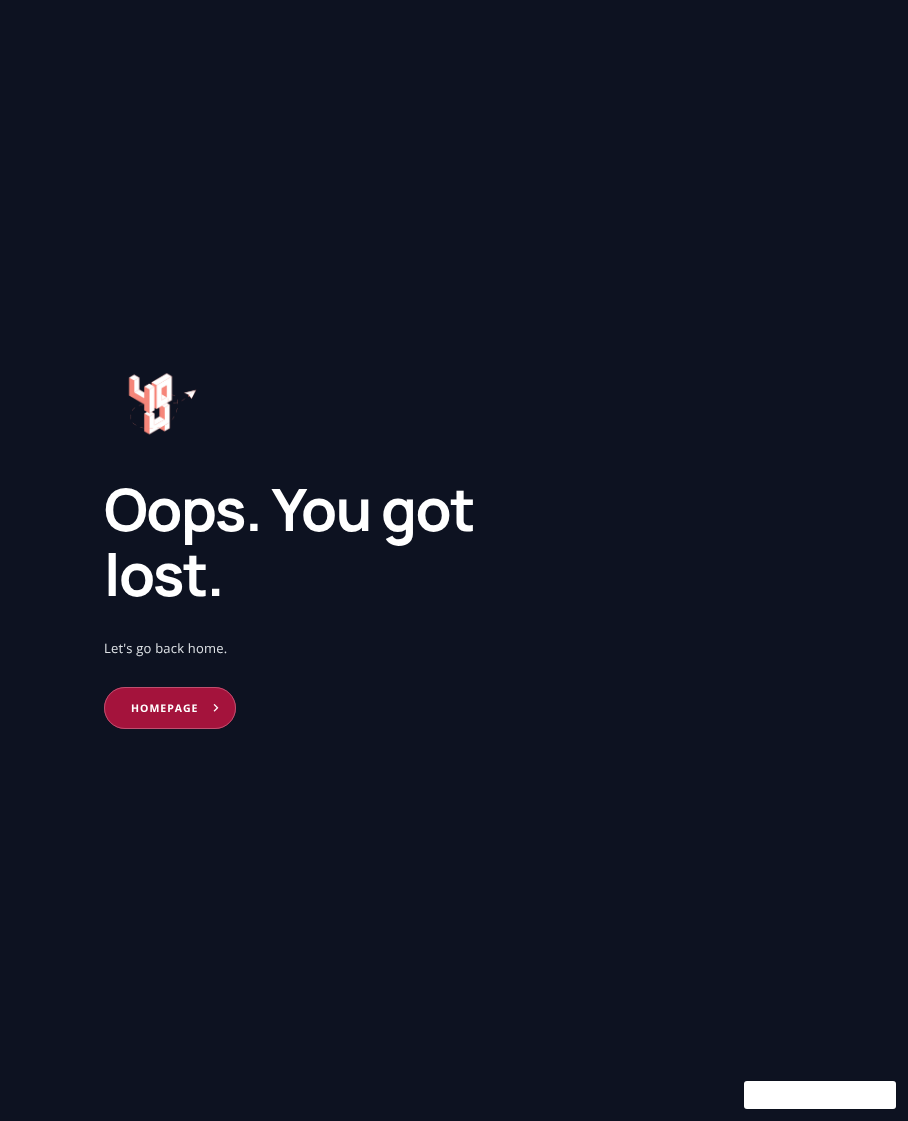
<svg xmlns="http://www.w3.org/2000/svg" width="908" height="1121">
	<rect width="100%" height="100%" fill="#0D1221" />
	<image x="128" y="373" width="69" height="62" href="assets/img1.png" />
	<g font-family="Manrope" font-size="58.5" font-weight="700" letter-spacing="-1.5" fill="#FFFFFF">
		<text x="104" y="531">Oops. You got</text>
		<text x="104" y="596">lost.</text>
	</g>
	<text x="104" y="653" font-family="Open Sans" font-size="13" letter-spacing="0.2" fill="#DEE2E6">Let's go back home.</text>
	<rect x="104" y="687" width="132" height="42" rx="21" fill="#A4133C" />
	<image x="213" y="704" width="6" height="8" href="assets/img2.png" />
	<rect x="104.5" y="687.5" width="131" height="41" rx="20.5" fill="none" stroke="#BE4F6F" />
	<text x="131" y="712" font-family="Open Sans" font-size="10.5" font-weight="700" letter-spacing="1" fill="#FFFFFF">HOMEPAGE</text>
	<rect x="743.5" y="1080.5" width="153" height="29" rx="3.5" fill="none" stroke="#0B101D" />
	<rect x="744" y="1081" width="152" height="28" rx="3" fill="#FFFFFF" />
</svg>
